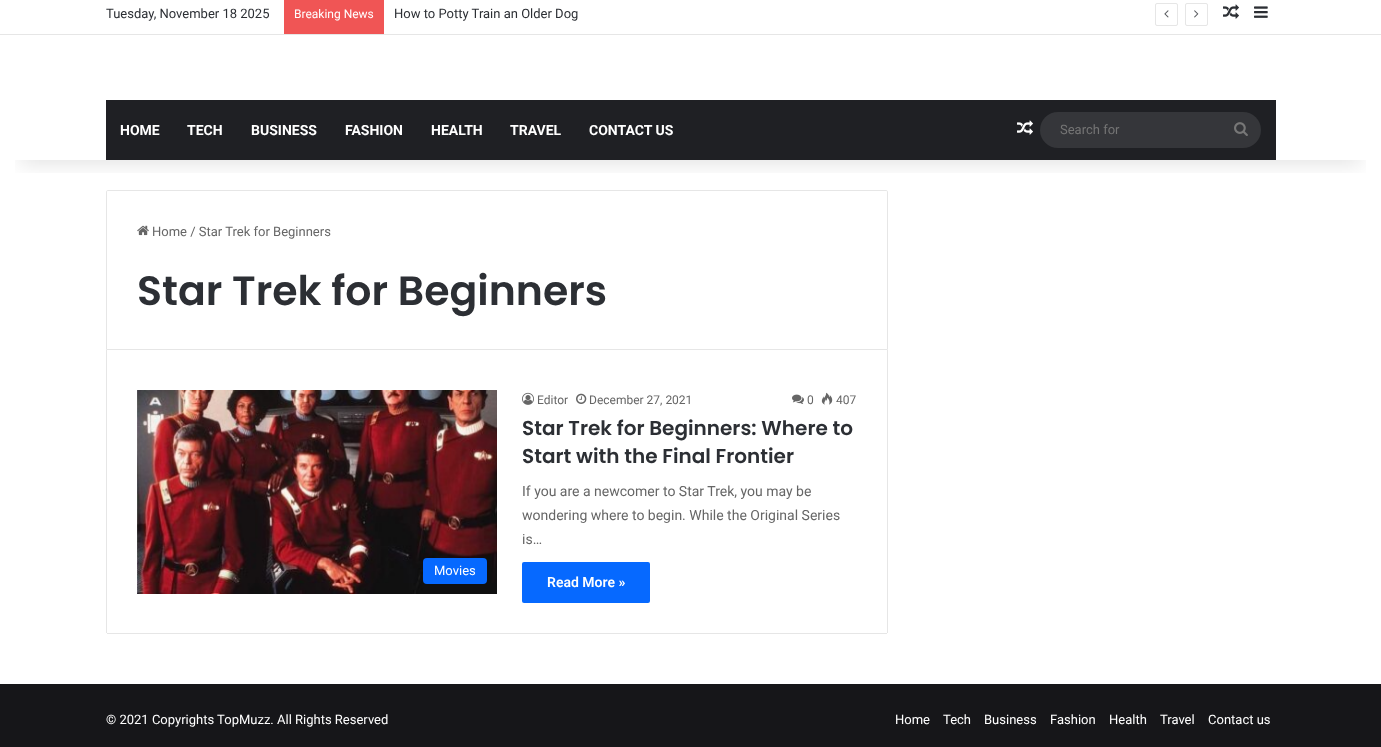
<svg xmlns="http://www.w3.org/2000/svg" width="1381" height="747">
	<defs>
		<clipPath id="clip1"><rect x="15" y="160" width="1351" height="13" /></clipPath>
	</defs>
	<rect width="100%" height="100%" fill="#FFFFFF" />
	<path d="M108 190.5H886C887 190.5 887.5 191 887.5 192V349.5H106.5V192C106.5 191 107 190.5 108 190.5Z" fill="none" stroke="#E6E6E6" />
	<g clip-path="url(#clip1)">
		<rect x="20" y="39" width="1341" height="126" fill="#000000" fill-opacity="0.1" filter="blur(10px)" />
	</g>
	<rect x="0" y="34" width="1381" height="1" fill="#E6E6E6" />
	<text x="106" y="18" font-family="Roboto" font-size="13" fill="#2C2F34">Tuesday, November 18 2025</text>
	<rect x="284" y="0" width="100" height="34" fill="#F05555" />
	<text x="294" y="18" font-family="Roboto" font-size="12" fill="#FFFFFF">Breaking News</text>
	<text x="394" y="18" font-family="Roboto" font-size="13" fill="#2C2F34">How to Potty Train an Older Dog</text>
	<rect x="1155.5" y="3.5" width="22" height="22" rx="1.5" fill="none" stroke="#E6E6E6" />
	<image x="1164" y="10" width="5" height="8" href="assets/img1.png" />
	<rect x="1185.5" y="3.5" width="22" height="22" rx="1.5" fill="none" stroke="#E6E6E6" />
	<image x="1194" y="10" width="5" height="8" href="assets/img2.png" />
	<image x="1223" y="4" width="16" height="15" href="assets/img3.png" />
	<image x="1254" y="6" width="14" height="12" href="assets/img4.png" />
	<rect x="106" y="100" width="1170" height="60" fill="#1F2024" />
	<g font-family="Roboto" font-size="14" font-weight="700" fill="#FFFFFF">
		<text x="120" y="135">HOME</text>
		<text x="187" y="135">TECH</text>
		<text x="251" y="135">BUSINESS</text>
		<text x="345" y="135">FASHION</text>
		<text x="431" y="135">HEALTH</text>
		<text x="510" y="135">TRAVEL</text>
		<text x="589" y="135">CONTACT US</text>
	</g>
	<image x="1017" y="120" width="16" height="15" href="assets/img5.png" />
	<rect x="1040" y="112" width="221" height="36" rx="18" fill="#35363A" />
	<text x="1060" y="134" font-family="Roboto" font-size="13" fill="#757575">Search for</text>
	<image x="1234" y="122" width="14" height="14" href="assets/img6.png" />
	<image x="137" y="225" width="12" height="11" href="assets/img7.png" />
	<text x="152" y="236" font-family="Roboto" font-size="13" fill="#666666">Home / Star Trek for Beginners</text>
	<text x="137" y="305" font-family="Poppins" font-size="41" font-weight="600" fill="#2C2F34">Star Trek for Beginners</text>
	<rect x="887" y="350" width="1" height="283" fill="#E6E6E6" />
	<rect x="107" y="633" width="780" height="1" fill="#E6E6E6" />
	<rect x="106" y="350" width="1" height="283" fill="#E6E6E6" />
	<image x="137" y="390" width="360" height="204" href="assets/img8.png" />
	<rect x="423" y="558" width="64" height="26" rx="4" fill="#0669FF" />
	<text x="434" y="575" font-family="Roboto" font-size="13" fill="#FFFFFF">Movies</text>
	<image x="522" y="392" width="12" height="13" href="assets/img9.png" />
	<text x="537" y="404" font-family="Roboto" font-size="12" fill="#666666">Editor</text>
	<image x="576" y="393" width="11" height="11" href="assets/img10.png" />
	<text x="589" y="404" font-family="Roboto" font-size="12" fill="#666666">December 27, 2021</text>
	<image x="792" y="394" width="12" height="10" href="assets/img11.png" />
	<text x="807" y="404" font-family="Roboto" font-size="12" fill="#666666">0</text>
	<image x="821" y="392" width="12" height="13" href="assets/img12.png" />
	<text x="836" y="404" font-family="Roboto" font-size="12" fill="#666666">407</text>
	<g font-family="Poppins" font-size="20" font-weight="600" fill="#2C2F34">
		<text x="522" y="435">Star Trek for Beginners: Where to</text>
		<text x="522" y="463">Start with the Final Frontier</text>
	</g>
	<g font-family="Roboto" font-size="14" fill="#666666">
		<text x="522" y="496">If you are a newcomer to Star Trek, you may be</text>
		<text x="522" y="520">wondering where to begin. While the Original Series</text>
		<text x="522" y="544">is…</text>
	</g>
	<rect x="522" y="562" width="128" height="41" rx="2" fill="#0669FF" />
	<text x="547" y="587" font-family="Roboto" font-size="14" font-weight="600" fill="#FFFFFF">Read More »</text>
	<rect x="0" y="684" width="1381" height="63" fill="#161619" />
	<g font-family="Roboto" font-size="13" fill="#FFFFFF">
		<text x="106" y="724">© 2021 Copyrights TopMuzz. All Rights Reserved</text>
		<text x="895" y="724">Home</text>
		<text x="943" y="724">Tech</text>
		<text x="984" y="724">Business</text>
		<text x="1050" y="724">Fashion</text>
		<text x="1109" y="724">Health</text>
		<text x="1160" y="724">Travel</text>
		<text x="1208" y="724">Contact us</text>
	</g>
</svg>
